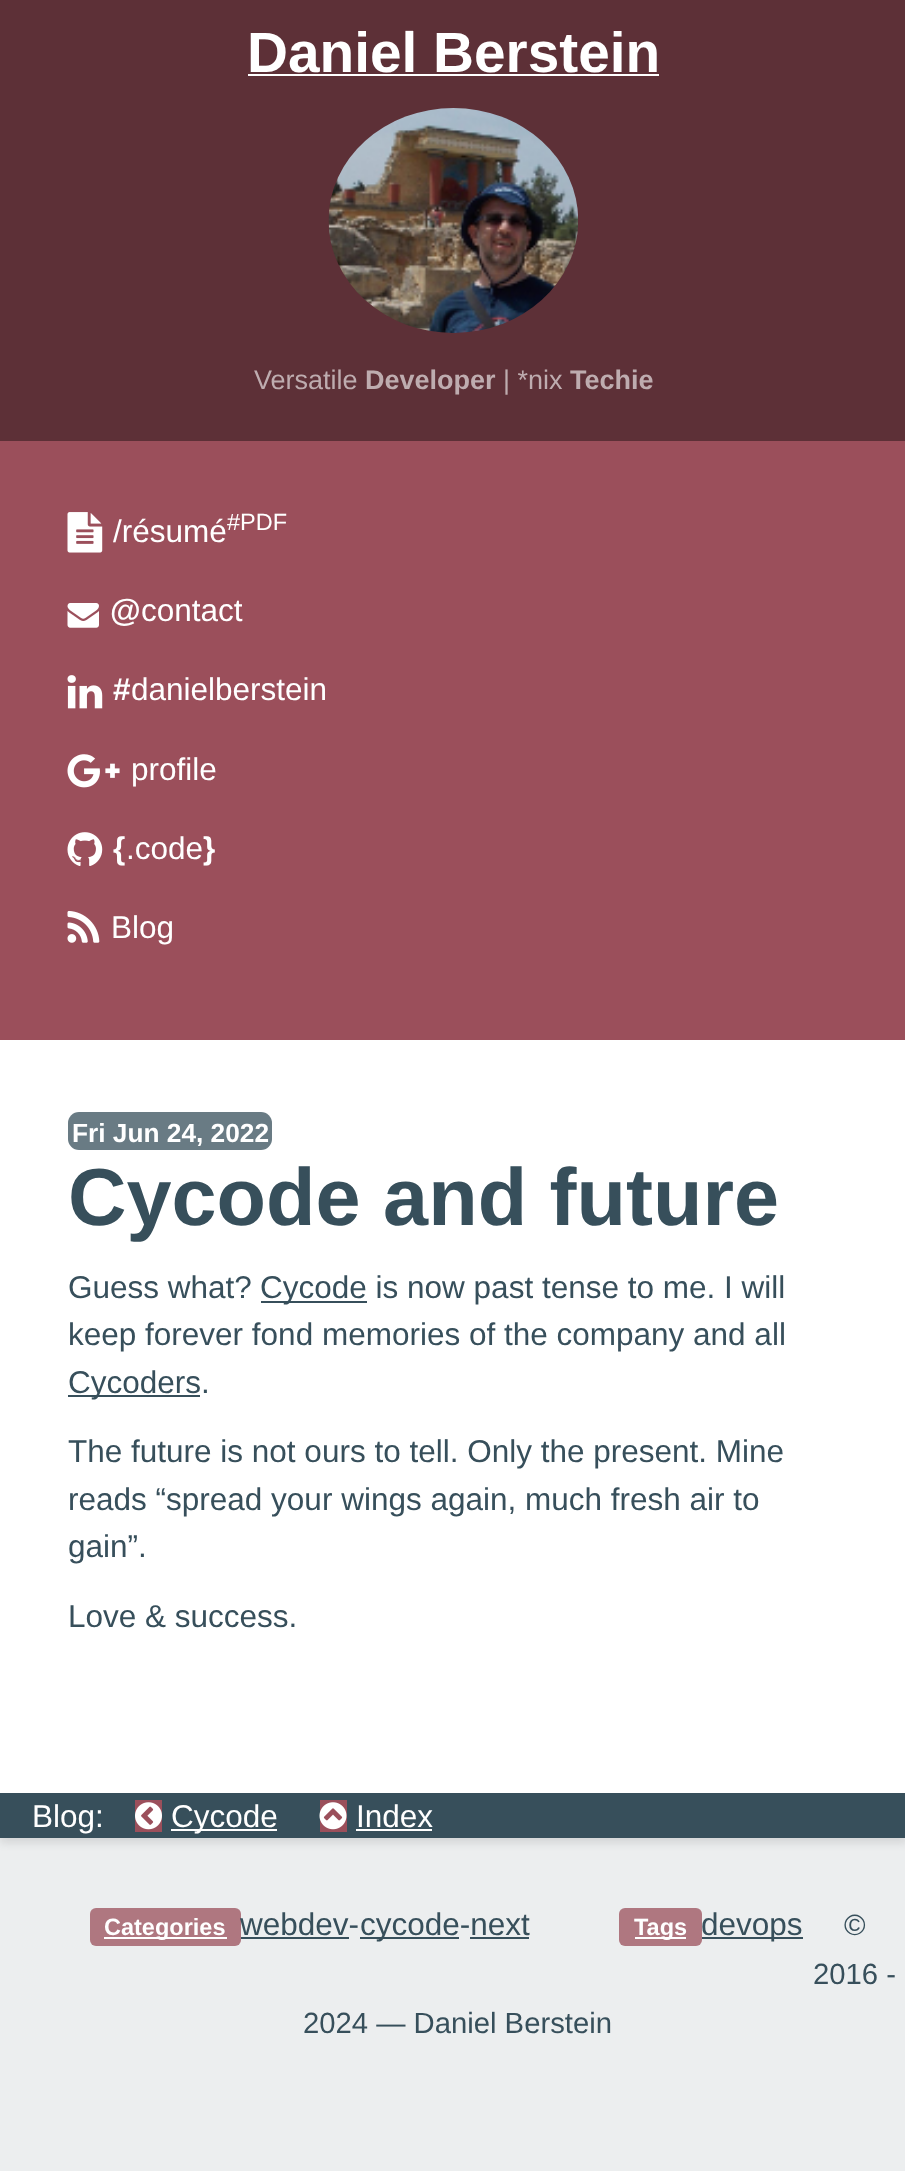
<svg xmlns="http://www.w3.org/2000/svg" width="905" height="2171">
	<rect width="100%" height="100%" fill="#ECEEEF" />
	<rect x="0" y="5" width="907" height="1838" fill="#000000" fill-opacity="0.1" filter="blur(4.5px)" />
	<rect x="0" y="1040" width="905" height="753" fill="#FFFFFF" />
	<rect x="0" y="441" width="905" height="599" fill="#9B4F5B" />
	<rect x="0" y="0" width="905" height="441" fill="#5D3037" />
	<text x="247" y="72" font-family="Liberation Sans" font-size="56.75" font-weight="700" fill="#FFFFFF">Daniel Berstein</text>
	<rect x="248" y="74" width="411" height="2" fill="#FFFFFF" />
	<image x="328" y="108" width="250" height="225" href="assets/img1.png" />
	<text x="254" y="389" font-family="Liberation Sans" font-size="27" fill="#BEACAF">Versatile</text>
	<text x="365" y="389" font-family="Liberation Sans" font-size="27" font-weight="700" fill="#BEACAF">Developer</text>
	<text x="503" y="389" font-family="Liberation Sans" font-size="27" fill="#BEACAF">| *nix</text>
	<text x="570" y="389" font-family="Liberation Sans" font-size="27" font-weight="700" fill="#BEACAF">Techie</text>
	<image x="67" y="512" width="36" height="41" href="assets/img2.png" />
	<text x="113" y="542" font-family="Liberation Sans" font-size="31.5" fill="#FFFFFF">/résumé</text>
	<text x="227" y="530" font-family="Liberation Sans" font-size="23.5" fill="#FFFFFF">#PDF</text>
	<image x="67" y="603" width="32" height="25" href="assets/img3.png" />
	<text x="110" y="621" font-family="Liberation Sans" font-size="31.5" font-weight="700" fill="#FFFFFF">@</text>
	<text x="141" y="621" font-family="Liberation Sans" font-size="31.5" fill="#FFFFFF">contact</text>
	<image x="67" y="675" width="36" height="34" href="assets/img4.png" />
	<text x="113" y="700" font-family="Liberation Sans" font-size="31.5" font-weight="700" fill="#FFFFFF">#</text>
	<text x="131" y="700" font-family="Liberation Sans" font-size="31.5" fill="#FFFFFF">danielberstein</text>
	<image x="67" y="754" width="53" height="34" href="assets/img5.png" />
	<text x="131" y="780" font-family="Liberation Sans" font-size="31.5" fill="#FFFFFF">profile</text>
	<image x="67" y="832" width="36" height="34" href="assets/img6.png" />
	<text x="113" y="859" font-family="Liberation Sans" font-size="31.5" font-weight="700" fill="#FFFFFF">{</text>
	<text x="126" y="859" font-family="Liberation Sans" font-size="31.5" fill="#FFFFFF">.code</text>
	<text x="203" y="859" font-family="Liberation Sans" font-size="31.5" font-weight="700" fill="#FFFFFF">}</text>
	<image x="67" y="910" width="33" height="33" href="assets/img7.png" />
	<text x="111" y="938" font-family="Liberation Sans" font-size="31.5" fill="#FFFFFF">Blog</text>
	<rect x="68" y="1112" width="204" height="38" rx="11" fill="#697B84" />
	<text x="72" y="1142" font-family="Liberation Sans" font-size="26.25" font-weight="700" fill="#FFFFFF">Fri Jun 24, 2022</text>
	<text x="68" y="1225" font-family="Liberation Sans" font-size="81" font-weight="700" fill="#374F5B">Cycode and future</text>
	<text x="68" y="1298" font-family="Liberation Sans" font-size="31.5" fill="#374F5B">Guess what?</text>
	<rect x="261" y="1301" width="106" height="2" fill="#374F5B" />
	<g font-family="Liberation Sans" font-size="31.5" fill="#374F5B">
		<text x="260" y="1298">Cycode is now past tense to me. I will</text>
		<text x="68" y="1345">keep forever fond memories of the company and all</text>
	</g>
	<rect x="68" y="1395" width="132" height="2" fill="#374F5B" />
	<g font-family="Liberation Sans" font-size="31.5" fill="#374F5B">
		<text x="68" y="1393">Cycoders.</text>
		<text x="68" y="1462">The future is not ours to tell. Only the present. Mine</text>
		<text x="68" y="1510">reads “spread your wings again, much fresh air to</text>
		<text x="68" y="1557">gain”.</text>
		<text x="68" y="1627">Love &amp; success.</text>
	</g>
	<rect x="0" y="1793" width="905" height="45" fill="#374F5B" />
	<text x="32" y="1827" font-family="Liberation Sans" font-size="31.5" fill="#FFFFFF">Blog:</text>
	<rect x="135" y="1800" width="27" height="32" fill="#9B4F5B" />
	<image x="135" y="1802" width="27" height="28" href="assets/img8.png" />
	<rect x="171" y="1829" width="106" height="2" fill="#FFFFFF" />
	<text x="171" y="1827" font-family="Liberation Sans" font-size="31.5" fill="#FFFFFF">Cycode</text>
	<rect x="320" y="1800" width="27" height="32" fill="#9B4F5B" />
	<image x="319" y="1802" width="28" height="28" href="assets/img9.png" />
	<text x="356" y="1827" font-family="Liberation Sans" font-size="31.5" fill="#FFFFFF">Index</text>
	<rect x="356" y="1829" width="76" height="2" fill="#FFFFFF" />
	<rect x="90" y="1908" width="151" height="38" rx="6" fill="#AF7780" />
	<rect x="104" y="1937" width="123" height="2" fill="#FFFFFF" />
	<text x="104" y="1935" font-family="Liberation Sans" font-size="23.5" font-weight="700" fill="#FFFFFF">Categories</text>
	<text x="240" y="1935" font-family="Liberation Sans" font-size="31.5" fill="#374F5B">webdev-</text>
	<rect x="241" y="1937" width="108" height="2" fill="#374F5B" />
	<rect x="360" y="1937" width="99" height="2" fill="#374F5B" />
	<text x="360" y="1935" font-family="Liberation Sans" font-size="31.5" fill="#374F5B">cycode-next</text>
	<rect x="470" y="1937" width="59" height="2" fill="#374F5B" />
	<rect x="619" y="1908" width="83" height="38" rx="6" fill="#AF7780" />
	<rect x="635" y="1937" width="51" height="2" fill="#FFFFFF" />
	<text x="634" y="1935" font-family="Liberation Sans" font-size="23.5" font-weight="700" fill="#FFFFFF">Tags</text>
	<rect x="702" y="1937" width="101" height="2" fill="#374F5B" />
	<text x="701" y="1935" font-family="Liberation Sans" font-size="31.5" fill="#374F5B">devops</text>
	<g font-family="Liberation Sans" font-size="29.25" fill="#374F5B">
		<text x="844" y="1935">©</text>
		<text x="813" y="1984">2016 -</text>
		<text x="303" y="2033">2024 — Daniel Berstein</text>
	</g>
</svg>
